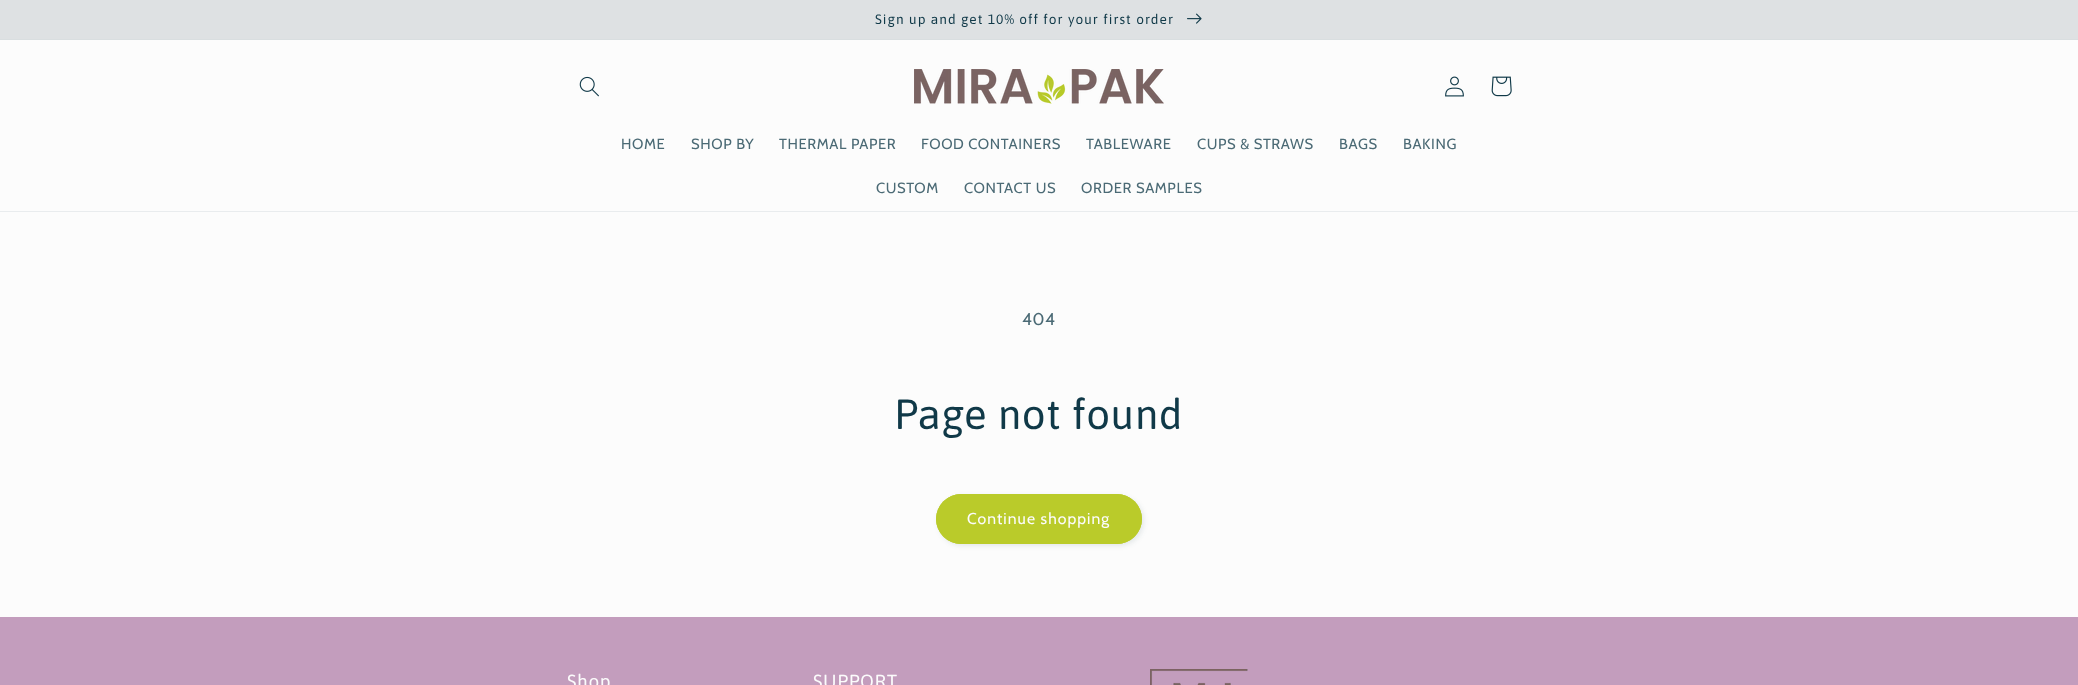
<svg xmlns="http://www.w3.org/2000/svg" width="2078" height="685">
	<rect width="100%" height="100%" fill="#FCFCFC" />
	<rect x="0" y="39" width="2078" height="1" fill="#D9DEE0" />
	<rect x="0" y="0" width="2078" height="39" fill="#DEE1E3" />
	<text x="875" y="24" font-family="Asap" font-size="13.65" letter-spacing="1.05" fill="#103948">Sign up and get 10% off for your first order</text>
	<image x="1187" y="13" width="15" height="11" href="assets/img1.png" />
	<rect x="0" y="211" width="2078" height="1" fill="#E9ECEE" />
	<image x="579" y="76" width="20" height="21" href="assets/img2.png" />
	<image x="914" y="69" width="250" height="35" href="assets/img3.png" />
	<image x="1445" y="76" width="19" height="21" href="assets/img4.png" />
	<image x="1491" y="76" width="21" height="21" href="assets/img5.png" />
	<g font-family="Cabin" font-size="14.75" letter-spacing="0.6" fill="#4B6A75">
		<text x="621" y="149">HOME</text>
		<text x="691" y="149">SHOP BY</text>
		<text x="779" y="149">THERMAL PAPER</text>
		<text x="921" y="149">FOOD CONTAINERS</text>
		<text x="1086" y="149">TABLEWARE</text>
		<text x="1197" y="149">CUPS &amp; STRAWS</text>
		<text x="1339" y="149">BAGS</text>
		<text x="1403" y="149">BAKING</text>
		<text x="876" y="193">CUSTOM</text>
		<text x="964" y="193">CONTACT US</text>
		<text x="1081" y="193">ORDER SAMPLES</text>
	</g>
	<text x="1022" y="325" font-family="Cabin" font-size="17" letter-spacing="0.6" fill="#4B6A75">404</text>
	<text x="894" y="429" font-family="Asap" font-size="42" letter-spacing="0.6" fill="#103948">Page not found</text>
	<rect x="938" y="496" width="206" height="50" rx="25" fill="#103948" fill-opacity="0.1" filter="blur(2.5px)" />
	<rect x="936" y="494" width="206" height="50" rx="25" fill="#BACB2A" />
	<rect x="936.5" y="494.5" width="205" height="49" rx="24.5" fill="none" stroke="#BACB2A" />
	<text x="967" y="524" font-family="Cabin" font-size="15.75" letter-spacing="1.05" fill="#FCFCFC">Continue shopping</text>
	<rect x="0" y="617" width="2078" height="68" fill="#C39DBD" />
	<g font-family="Asap" font-size="19" letter-spacing="0.6" fill="#FCFCFC">
		<text x="567" y="688">Shop</text>
		<text x="813" y="688">SUPPORT</text>
	</g>
	<image x="1150" y="669" width="98" height="16" href="assets/img6.png" />
</svg>
